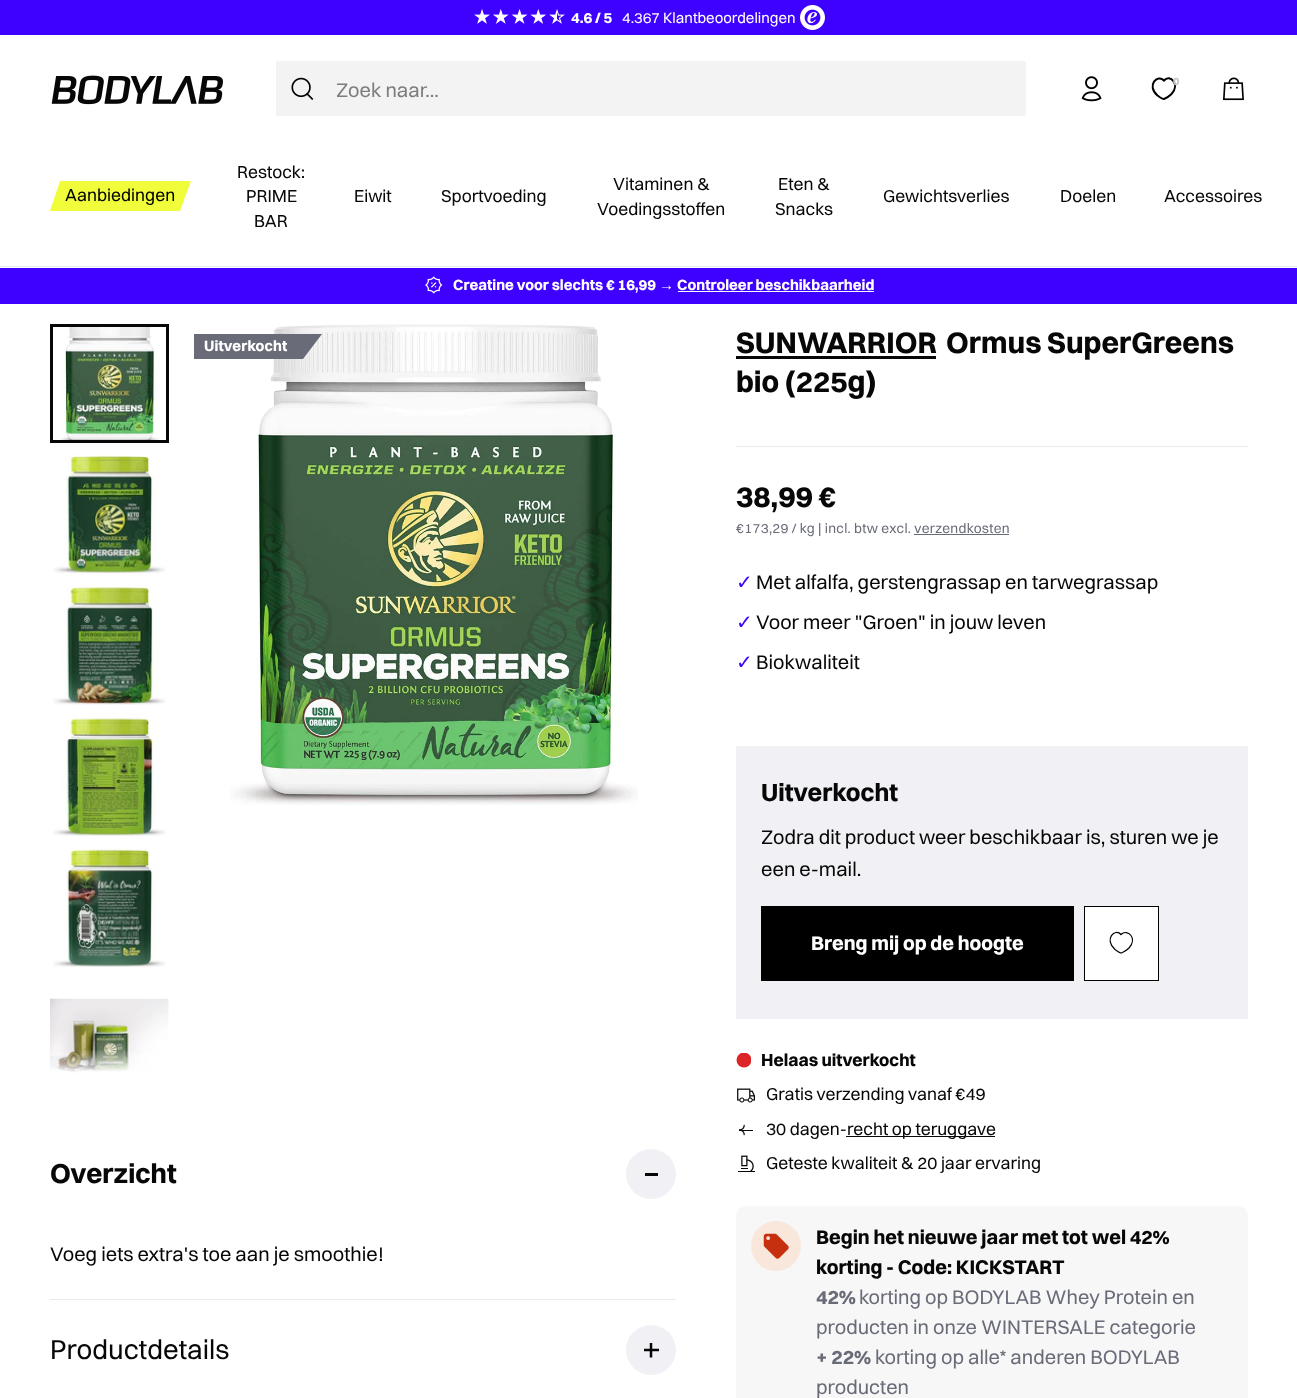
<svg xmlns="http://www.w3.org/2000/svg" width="1297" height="1398">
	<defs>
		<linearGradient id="g1" gradientUnits="userSpaceOnUse" x1="109" y1="1074" x2="109" y2="1049"><stop offset="0" stop-color="#FFFFFF" /><stop offset="1" stop-color="#FFFFFF" stop-opacity="0" /></linearGradient>
		<clipPath id="clip1"><rect x="736" y="1053" width="15" height="15" /></clipPath>
		<clipPath id="clip2"><rect x="644" y="1343" width="15" height="15" /></clipPath>
	</defs>
	<rect width="100%" height="100%" fill="#FFFFFF" />
	<rect x="0" y="0" width="1297" height="35" fill="#3E01FF" />
	<image x="474" y="9" width="16" height="15" href="assets/img1.png" />
	<image x="493" y="9" width="16" height="15" href="assets/img2.png" />
	<image x="511" y="9" width="17" height="15" href="assets/img3.png" />
	<image x="530" y="9" width="16" height="15" href="assets/img4.png" />
	<image x="549" y="9" width="16" height="15" href="assets/img5.png" />
	<text x="571" y="23" font-family="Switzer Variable" font-size="15" font-weight="700" fill="#FFFFFF">4.6 / 5</text>
	<text x="622" y="23" font-family="Switzer Variable" font-size="15" fill="#FFFFFF">4.367 Klantbeoordelingen</text>
	<image x="800" y="5" width="25" height="25" href="assets/img6.png" />
	<rect x="0" y="266" width="1297" height="1" fill="#EAEAEA" />
	<image x="51" y="75" width="172" height="30" href="assets/img7.png" />
	<rect x="276" y="61" width="750" height="55" rx="2.5" fill="#F3F3F3" />
	<image x="291" y="77" width="23" height="23" href="assets/img8.png" />
	<text x="336" y="97" font-family="Switzer Variable" font-size="20" fill="#7D7D7D">Zoek naar...</text>
	<image x="1081" y="76" width="21" height="26" href="assets/img9.png" />
	<path d="M1164 99C1162 99 1159 96.5 1157.5 95.5C1146 85.5 1157.5 73.5 1164 80.5C1170 73.5 1180.5 84.5 1171.5 94C1169.5 96 1166.5 98 1164 99Z" fill="none" stroke="#000000" stroke-width="2" />
	<text x="1173" y="85" font-family="Switzer Variable" font-size="11" font-weight="800" fill="#C6C6C6">0</text>
	<image x="1223" y="77" width="21" height="24" href="assets/img10.png" />
	<path d="M60 181H191L180 211H50Z" fill="#F1FD3A" />
	<text x="65" y="201" font-family="Switzer Variable" font-size="17.5" fill="#000000">Aanbiedingen</text>
	<g font-family="Switzer Variable" font-size="17.5" fill="#070707">
		<text x="237" y="178">Restock:</text>
		<text x="246" y="202">PRIME</text>
		<text x="254" y="227">BAR</text>
		<text x="354" y="202">Eiwit</text>
		<text x="441" y="202">Sportvoeding</text>
		<text x="613" y="190">Vitaminen &amp;</text>
		<text x="597" y="215">Voedingsstoffen</text>
		<text x="778" y="190">Eten &amp;</text>
		<text x="775" y="215">Snacks</text>
		<text x="883" y="202">Gewichtsverlies</text>
		<text x="1060" y="202">Doelen</text>
		<text x="1164" y="202">Accessoires</text>
	</g>
	<rect x="0" y="268" width="1297" height="36" fill="#3E01FF" />
	<image x="425" y="276" width="18" height="18" href="assets/img11.png" />
	<text x="453" y="290" font-family="Switzer Variable" font-size="15" font-weight="700" fill="#FFFFFF">Creatine voor slechts € 16,99</text>
	<text x="659" y="290" font-family="Liberation Sans" font-size="15" font-weight="700" fill="#FFFFFF">→</text>
	<text x="677" y="290" font-family="Switzer Variable" font-size="15" font-weight="700" fill="#FFFFFF">Controleer beschikbaarheid</text>
	<rect x="678" y="291" width="196" height="1" fill="#FFFFFF" />
	<image x="60" y="327" width="100" height="113" href="assets/img12.png" />
	<rect x="51.5" y="325.5" width="116" height="116" fill="none" stroke="#070707" stroke-width="3" />
	<image x="53" y="455" width="113" height="119" href="assets/img13.png" />
	<image x="53" y="586" width="113" height="119" href="assets/img14.png" />
	<image x="53" y="717" width="113" height="119" href="assets/img15.png" />
	<image x="53" y="849" width="113" height="118" href="assets/img16.png" />
	<image x="50" y="998" width="119" height="76" href="assets/img17.png" />
	<rect x="50" y="1050" width="118" height="24" fill="url(#g1)" />
	<image x="230" y="324" width="408" height="481" href="assets/img18.png" />
	<path d="M194 334H322L303 359H194Z" fill="#696C78" />
	<text x="204" y="351" font-family="Switzer Variable" font-size="15" font-weight="700" letter-spacing="0.1" fill="#FFFFFF">Uitverkocht</text>
	<text x="736" y="353" font-family="Switzer Variable" font-size="30" font-weight="700" fill="#070707">SUNWARRIOR</text>
	<rect x="736" y="356" width="200" height="3" fill="#070707" />
	<g font-family="Switzer Variable" font-size="30" font-weight="700" fill="#070707">
		<text x="946" y="353">Ormus SuperGreens</text>
		<text x="736" y="392">bio (225g)</text>
	</g>
	<rect x="736" y="446" width="512" height="1" fill="#EAEAEA" />
	<text x="736" y="507" font-family="Switzer Variable" font-size="30" font-weight="700" fill="#070707">38,99 €</text>
	<text x="736" y="533" font-family="Switzer Variable" font-size="13.75" letter-spacing="0.3" fill="#696C78">€173,29 / kg | incl. btw excl. verzendkosten</text>
	<rect x="914" y="534" width="95" height="1" fill="#696C78" />
	<text x="736" y="589" font-family="DejaVu Sans" font-size="20" fill="#3E01FF">✓</text>
	<text x="756" y="589" font-family="Switzer Variable" font-size="20" fill="#070707">Met alfalfa, gerstengrassap en tarwegrassap</text>
	<text x="736" y="629" font-family="DejaVu Sans" font-size="20" fill="#3E01FF">✓</text>
	<text x="756" y="629" font-family="Switzer Variable" font-size="20" fill="#070707">Voor meer "Groen" in jouw leven</text>
	<text x="736" y="669" font-family="DejaVu Sans" font-size="20" fill="#3E01FF">✓</text>
	<text x="756" y="669" font-family="Switzer Variable" font-size="20" fill="#070707">Biokwaliteit</text>
	<rect x="736" y="746" width="512" height="273" fill="#F1F1F5" />
	<text x="761" y="801" font-family="Switzer Variable" font-size="25" font-weight="700" fill="#070707">Uitverkocht</text>
	<g font-family="Switzer Variable" font-size="20" fill="#070707">
		<text x="761" y="844">Zodra dit product weer beschikbaar is, sturen we je</text>
		<text x="761" y="876">een e-mail.</text>
	</g>
	<rect x="761" y="906" width="313" height="75" fill="#000000" />
	<text x="811" y="950" font-family="Switzer Variable" font-size="20" font-weight="700" fill="#FFFFFF">Breng mij op de hoogte</text>
	<rect x="1084.5" y="906.5" width="74" height="74" fill="#FFFFFF" stroke="#000000" />
	<path d="M1121.5 953C1119.5 953 1116.5 950.5 1115 949.5C1103.5 939.5 1115 927.5 1121 934.5C1127.5 928 1138 938.5 1129 948C1127 950 1124 952 1121.5 953Z" fill="none" stroke="#000000" stroke-width="1.2" />
	<g clip-path="url(#clip1)">
		<circle cx="744" cy="1060" r="7.5" fill="#DC2626" />
	</g>
	<text x="761" y="1066" font-family="Switzer Variable" font-size="17.5" font-weight="700" fill="#070707">Helaas uitverkocht</text>
	<image x="737" y="1088" width="18" height="15" href="assets/img19.png" />
	<text x="766" y="1100" font-family="Switzer Variable" font-size="17.5" fill="#070707">Gratis verzending vanaf €49</text>
	<image x="739" y="1124" width="14" height="12" href="assets/img20.png" />
	<text x="766" y="1135" font-family="Switzer Variable" font-size="17.5" fill="#070707">30 dagen-</text>
	<rect x="846" y="1136" width="149" height="1" fill="#070707" />
	<text x="847" y="1135" font-family="Switzer Variable" font-size="17.5" fill="#070707">recht op teruggave</text>
	<image x="738" y="1155" width="17" height="17" href="assets/img21.png" />
	<text x="766" y="1169" font-family="Switzer Variable" font-size="17.5" fill="#070707">Geteste kwaliteit &amp; 20 jaar ervaring</text>
	<rect x="736" y="1206" width="512" height="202" rx="10" fill="#F7F7F7" />
	<circle cx="776" cy="1246" r="25" fill="#F9E7DB" />
	<image x="763" y="1233" width="26" height="26" href="assets/img22.png" />
	<g font-family="Switzer Variable" font-size="20" font-weight="700" fill="#070707">
		<text x="816" y="1244">Begin het nieuwe jaar met tot wel 42%</text>
		<text x="816" y="1274">korting - Code: KICKSTART</text>
	</g>
	<text x="816" y="1304" font-family="Switzer Variable" font-size="20" font-weight="700" fill="#696C78">42%</text>
	<g font-family="Switzer Variable" font-size="20" fill="#696C78">
		<text x="859" y="1304">korting op BODYLAB Whey Protein en</text>
		<text x="816" y="1334">producten in onze WINTERSALE categorie</text>
	</g>
	<text x="816" y="1364" font-family="Switzer Variable" font-size="20" font-weight="700" fill="#696C78">+ 22%</text>
	<g font-family="Switzer Variable" font-size="20" fill="#696C78">
		<text x="875" y="1364">korting op alle* anderen BODYLAB</text>
		<text x="816" y="1394">producten</text>
	</g>
	<rect x="50" y="1299" width="626" height="1" fill="#EAEAEA" />
	<text x="50" y="1183" font-family="Switzer Variable" font-size="27.5" font-weight="700" fill="#070707">Overzicht</text>
	<circle cx="651" cy="1174" r="25" fill="#F1F1F5" />
	<rect x="645" y="1173" width="13" height="3" fill="#070707" />
	<text x="50" y="1261" font-family="Switzer Variable" font-size="20" fill="#070707">Voeg iets extra's toe aan je smoothie!</text>
	<text x="50" y="1359" font-family="Switzer Variable" font-size="27.5" fill="#070707">Productdetails</text>
	<circle cx="651" cy="1350" r="25" fill="#F1F1F5" />
	<g clip-path="url(#clip2)">
		<path d="M651 1342.5V1357.5" fill="none" stroke="#070707" stroke-width="2.5" />
	</g>
	<path d="M644 1350H659" fill="none" stroke="#070707" stroke-width="2.5" />
</svg>
